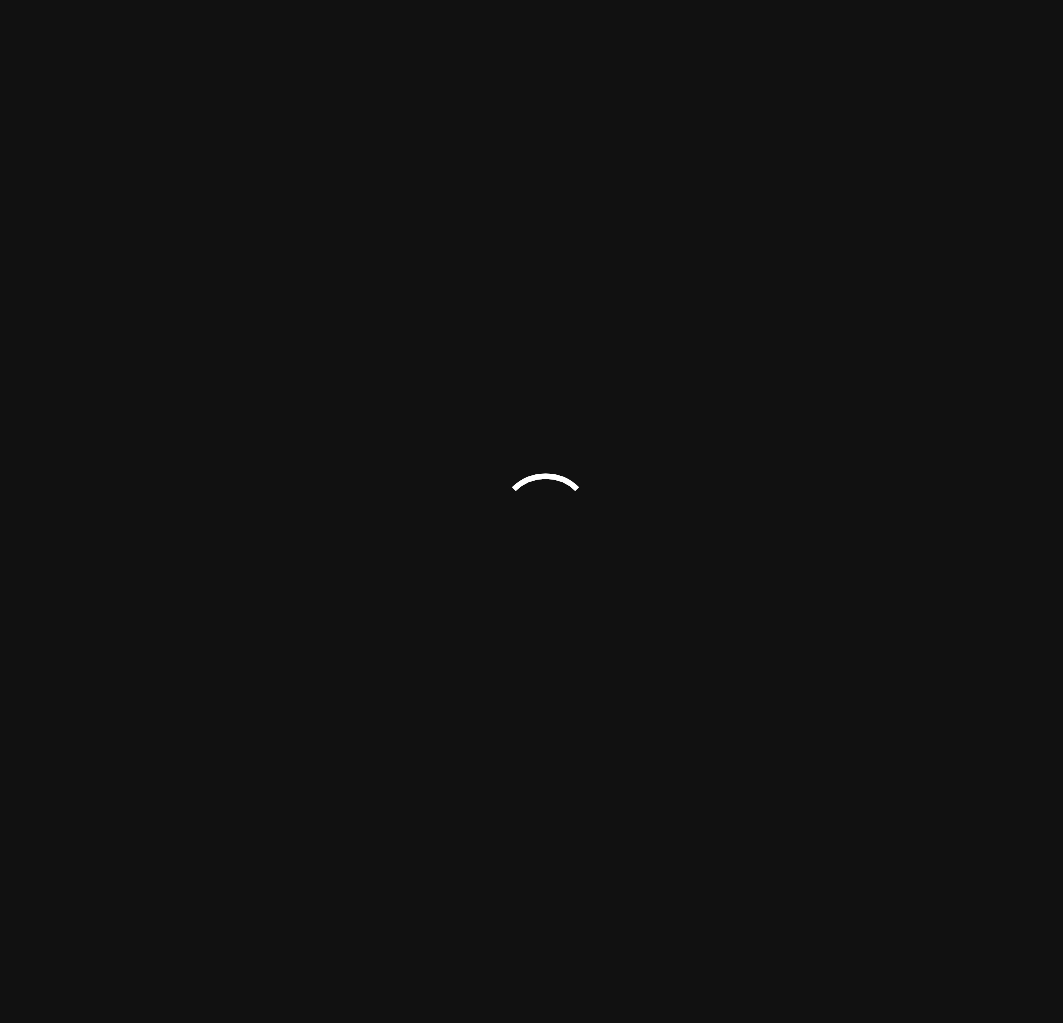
<svg xmlns="http://www.w3.org/2000/svg" width="1063" height="1023">
	<rect width="100%" height="100%" fill="#111111" />
	<path d="M514 489C531.5 472 560 472 577 489" fill="none" stroke="#FFFFFF" stroke-width="5" />
	<path d="M514 489C531.5 472 560 472 577 489" fill="none" stroke="#FFFFFF" stroke-width="5" />
	<path d="M514 489C531.5 472 560 472 577 489" fill="none" stroke="#FFFFFF" stroke-width="5" />
	<path d="M514 489C531.5 472 560 472 577 489" fill="none" stroke="#FFFFFF" stroke-width="5" />
</svg>
